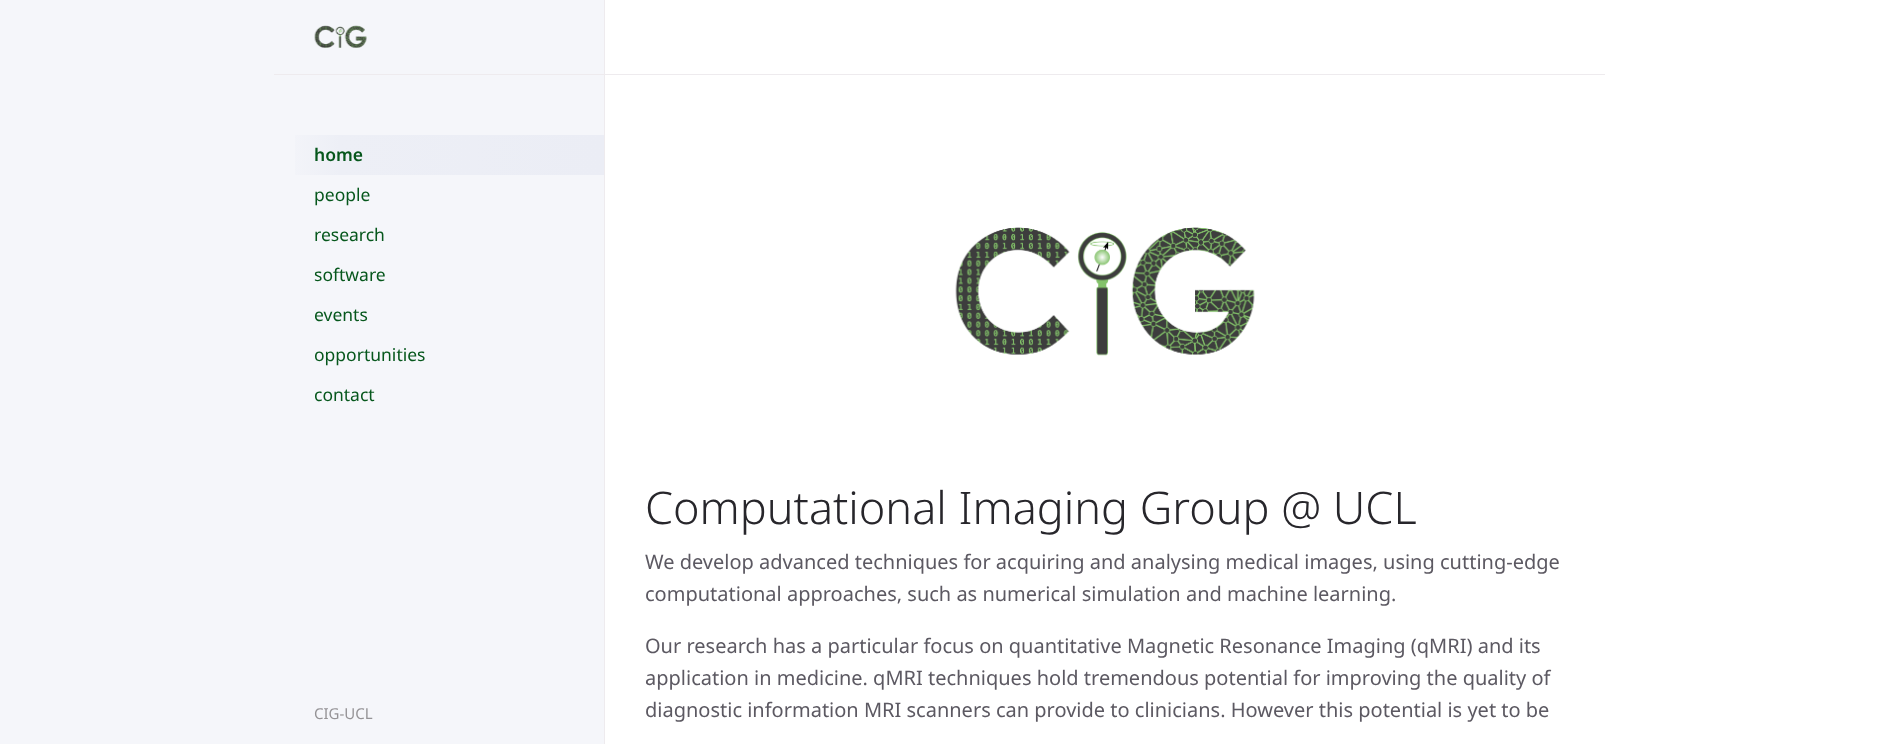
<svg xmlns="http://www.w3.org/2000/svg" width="1880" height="744">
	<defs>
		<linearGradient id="g1" gradientUnits="userSpaceOnUse" x1="604" y1="155" x2="274" y2="155"><stop offset="0" stop-color="#EBEDF5" /><stop offset="0.8" stop-color="#EDEFF6" /><stop offset="1" stop-color="#F5F6FA" /></linearGradient>
	</defs>
	<rect width="100%" height="100%" fill="#FFFFFF" />
	<rect x="0" y="0" width="604" height="744" fill="#F5F6FA" />
	<rect x="604" y="0" width="1" height="744" fill="#EEEBEE" />
	<rect x="274" y="74" width="330" height="1" fill="#EEEBEE" />
	<image x="314" y="25" width="53" height="23" href="assets/img1.png" />
	<rect x="295" y="135" width="309" height="40" fill="url(#g1)" />
	<text x="314" y="161" font-family="Noto Sans" font-size="17.5" font-weight="600" fill="#06571C">home</text>
	<g font-family="Noto Sans" font-size="17.5" fill="#06571C">
		<text x="314" y="201">people</text>
		<text x="314" y="241">research</text>
		<text x="314" y="281">software</text>
		<text x="314" y="321">events</text>
		<text x="314" y="361">opportunities</text>
		<text x="314" y="401">contact</text>
	</g>
	<text x="314" y="719" font-family="Noto Sans" font-size="15" fill="#959396">CIG-UCL</text>
	<rect x="605" y="74" width="1000" height="1" fill="#EEEBEE" />
	<image x="955" y="227" width="300" height="129" href="assets/img2.png" />
	<text x="645" y="524" font-family="Noto Sans" font-size="45" font-weight="300" fill="#27262B">Computational Imaging Group @ UCL</text>
	<g font-family="Noto Sans" font-size="20" fill="#5C5962">
		<text x="645" y="569">We develop advanced techniques for acquiring and analysing medical images, using cutting-edge</text>
		<text x="645" y="601">computational approaches, such as numerical simulation and machine learning.</text>
		<text x="645" y="653">Our research has a particular focus on quantitative Magnetic Resonance Imaging (qMRI) and its</text>
		<text x="645" y="685">application in medicine. qMRI techniques hold tremendous potential for improving the quality of</text>
		<text x="645" y="717">diagnostic information MRI scanners can provide to clinicians. However this potential is yet to be</text>
	</g>
</svg>
